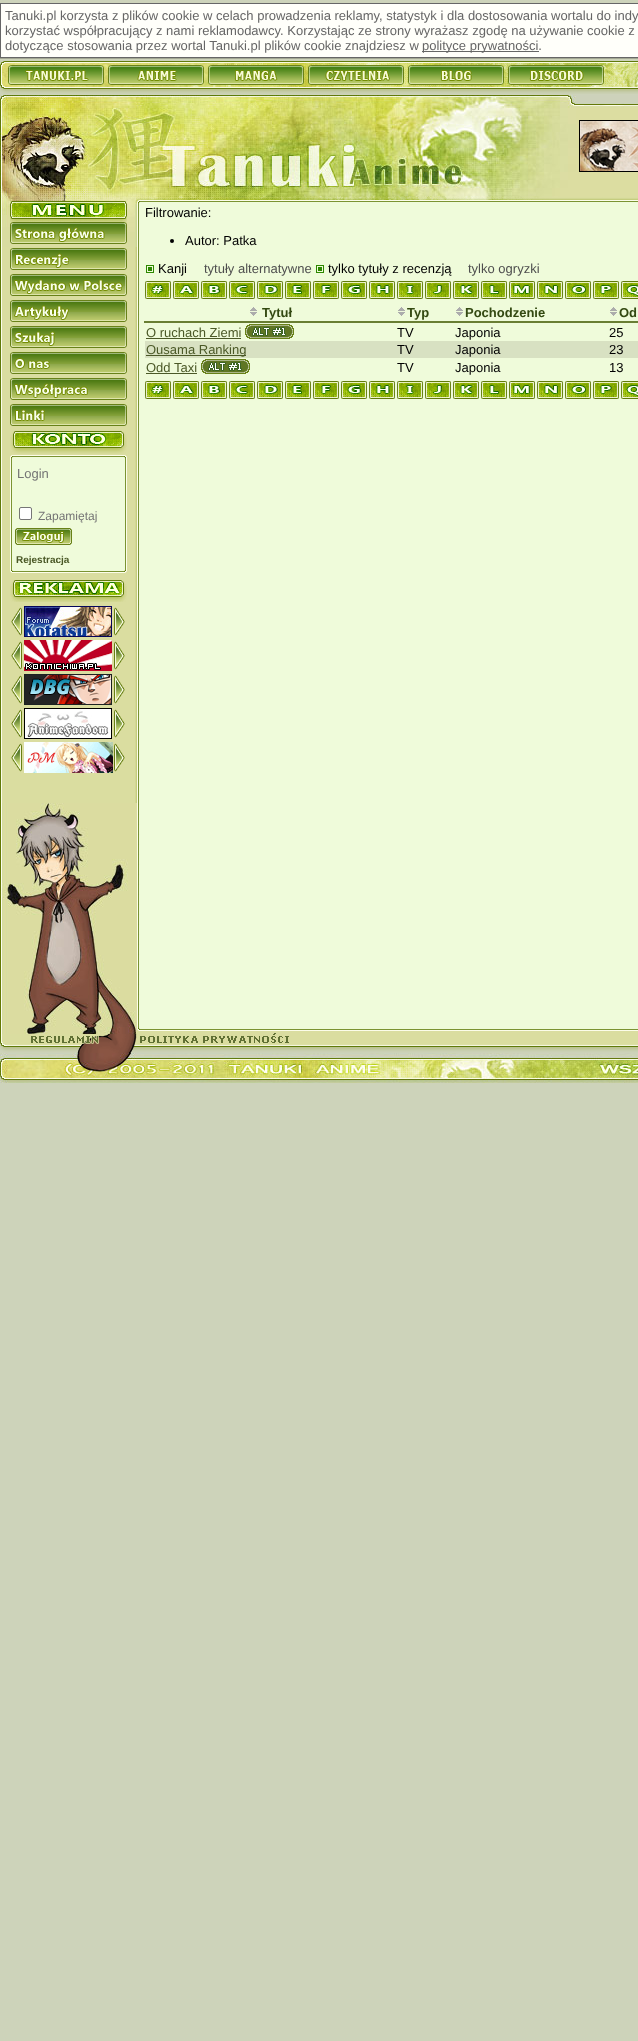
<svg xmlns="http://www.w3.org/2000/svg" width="638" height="2041">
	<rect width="100%" height="100%" fill="#CDD3BA" />
	<rect x="0" y="4" width="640" height="55" fill="#000000" fill-opacity="0.2" filter="blur(0.5px)" />
	<rect x="0.5" y="3.5" width="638" height="54" fill="#FFFFFA" stroke="#666666" />
	<g font-family="Liberation Sans" font-size="13" fill="#666666">
		<text x="5" y="20">Tanuki.pl korzysta z plików cookie w celach prowadzenia reklamy, statystyk i dla dostosowania wortalu do indy</text>
		<text x="5" y="35">korzystać współpracujący z nami reklamodawcy. Korzystając ze strony wyrażasz zgodę na używanie cookie z</text>
		<text x="5" y="50">dotyczące stosowania przez wortal Tanuki.pl plików cookie znajdziesz w</text>
	</g>
	<rect x="422" y="51" width="117" height="1" fill="#666666" />
	<text x="422" y="50" font-family="Liberation Sans" font-size="13" fill="#666666">polityce prywatności.</text>
	<image x="0" y="61" width="638" height="33" href="assets/img1.png" />
	<image x="0" y="247" width="638" height="779" href="assets/img2.png" />
	<image x="0" y="108" width="638" height="89" href="assets/img3.png" />
	<image x="0" y="95" width="638" height="13" href="assets/img4.png" />
	<image x="0" y="197" width="638" height="50" href="assets/img5.png" />
	<rect x="579.5" y="120.5" width="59" height="51" fill="none" stroke="#000000" />
	<image x="580" y="121" width="58" height="50" href="assets/img6.png" />
	<text x="145" y="217" font-family="Liberation Sans" font-size="13" fill="#000000">Filtrowanie:</text>
	<circle cx="172" cy="241" r="2" fill="#000000" />
	<text x="185" y="245" font-family="Liberation Sans" font-size="13" fill="#000000">Autor: Patka</text>
	<image x="146" y="265" width="8" height="8" href="assets/img7.png" />
	<text x="158" y="273" font-family="Liberation Sans" font-size="13" fill="#000000">Kanji</text>
	<text x="204" y="273" font-family="Liberation Sans" font-size="13" fill="#4E4E4E">tytuły alternatywne</text>
	<image x="316" y="265" width="8" height="8" href="assets/img7.png" />
	<text x="328" y="273" font-family="Liberation Sans" font-size="13" fill="#000000">tylko tytuły z recenzją</text>
	<text x="468" y="273" font-family="Liberation Sans" font-size="13" fill="#4E4E4E">tylko ogryzki</text>
	<image x="145" y="281" width="493" height="18" href="assets/img8.png" />
	<image x="250" y="307" width="7" height="9" href="assets/img9.png" />
	<text x="262" y="317" font-family="Liberation Sans" font-size="13" font-weight="700" fill="#334911">Tytuł</text>
	<image x="398" y="307" width="7" height="9" href="assets/img9.png" />
	<text x="407" y="317" font-family="Liberation Sans" font-size="13" font-weight="700" fill="#334911">Typ</text>
	<image x="456" y="307" width="7" height="9" href="assets/img9.png" />
	<text x="465" y="317" font-family="Liberation Sans" font-size="13" font-weight="700" fill="#334911">Pochodzenie</text>
	<rect x="144" y="321" width="494" height="2" fill="#697E33" />
	<image x="610" y="307" width="7" height="9" href="assets/img9.png" />
	<text x="619" y="317" font-family="Liberation Sans" font-size="13" font-weight="700" fill="#334911">Od</text>
	<text x="146" y="337" font-family="Liberation Sans" font-size="13" fill="#4B5927">O ruchach Ziemi</text>
	<rect x="146" y="338" width="95" height="1" fill="#4B5927" />
	<image x="245" y="324" width="49" height="15" href="assets/img10.png" />
	<g font-family="Liberation Sans" font-size="13" fill="#000000">
		<text x="397" y="337">TV</text>
		<text x="455" y="337">Japonia</text>
		<text x="609" y="337">25</text>
	</g>
	<rect x="145" y="341" width="493" height="17" fill="#D8E1C2" />
	<rect x="146" y="355" width="100" height="1" fill="#4B5927" />
	<text x="146" y="354" font-family="Liberation Sans" font-size="13" fill="#4B5927">Ousama Ranking</text>
	<g font-family="Liberation Sans" font-size="13" fill="#000000">
		<text x="397" y="354">TV</text>
		<text x="455" y="354">Japonia</text>
		<text x="609" y="354">23</text>
	</g>
	<text x="146" y="372" font-family="Liberation Sans" font-size="13" fill="#4B5927">Odd Taxi</text>
	<rect x="146" y="373" width="51" height="1" fill="#4B5927" />
	<image x="201" y="359" width="49" height="15" href="assets/img10.png" />
	<g font-family="Liberation Sans" font-size="13" fill="#000000">
		<text x="397" y="372">TV</text>
		<text x="455" y="372">Japonia</text>
		<text x="609" y="372">13</text>
	</g>
	<image x="145" y="381" width="493" height="18" href="assets/img8.png" />
	<image x="10" y="201" width="117" height="252" href="assets/img11.png" />
	<image x="13" y="432" width="111" height="22" href="assets/img12.png" />
	<image x="10" y="455" width="117" height="115" href="assets/img13.png" />
	<text x="17" y="478" font-family="Liberation Sans" font-size="13" fill="#757575">Login</text>
	<rect x="19.5" y="507.5" width="12" height="12" rx="1.5" fill="#FFFFFF" stroke="#767676" />
	<text x="38" y="520" font-family="Liberation Sans" font-size="12" fill="#757575">Zapamiętaj</text>
	<image x="15" y="528" width="57" height="17" href="assets/img14.png" />
	<text x="16" y="563" font-family="Liberation Sans" font-size="10" font-weight="700" fill="#4B5927">Rejestracja</text>
	<image x="10" y="570" width="117" height="3" href="assets/img15.png" />
	<image x="10" y="580" width="117" height="22" href="assets/img16.png" />
	<image x="11" y="607" width="114" height="29" href="assets/img17.png" />
	<image x="24" y="606" width="88" height="31" href="assets/img18.png" />
	<image x="11" y="641" width="114" height="29" href="assets/img17.png" />
	<image x="24" y="640" width="88" height="31" href="assets/img19.png" />
	<image x="11" y="675" width="114" height="29" href="assets/img17.png" />
	<image x="24" y="674" width="88" height="31" href="assets/img20.png" />
	<image x="11" y="709" width="114" height="29" href="assets/img17.png" />
	<image x="24" y="708" width="88" height="31" href="assets/img21.png" />
	<image x="11" y="743" width="114" height="29" href="assets/img17.png" />
	<image x="24" y="742" width="89" height="31" href="assets/img22.png" />
	<image x="0" y="1033" width="638" height="20" href="assets/img25.png" />
	<image x="0" y="803" width="137" height="231" href="assets/img23.png" />
	<image x="137" y="1026" width="501" height="7" href="assets/img24.png" />
	<image x="0" y="1053" width="638" height="30" href="assets/img26.png" />
</svg>
